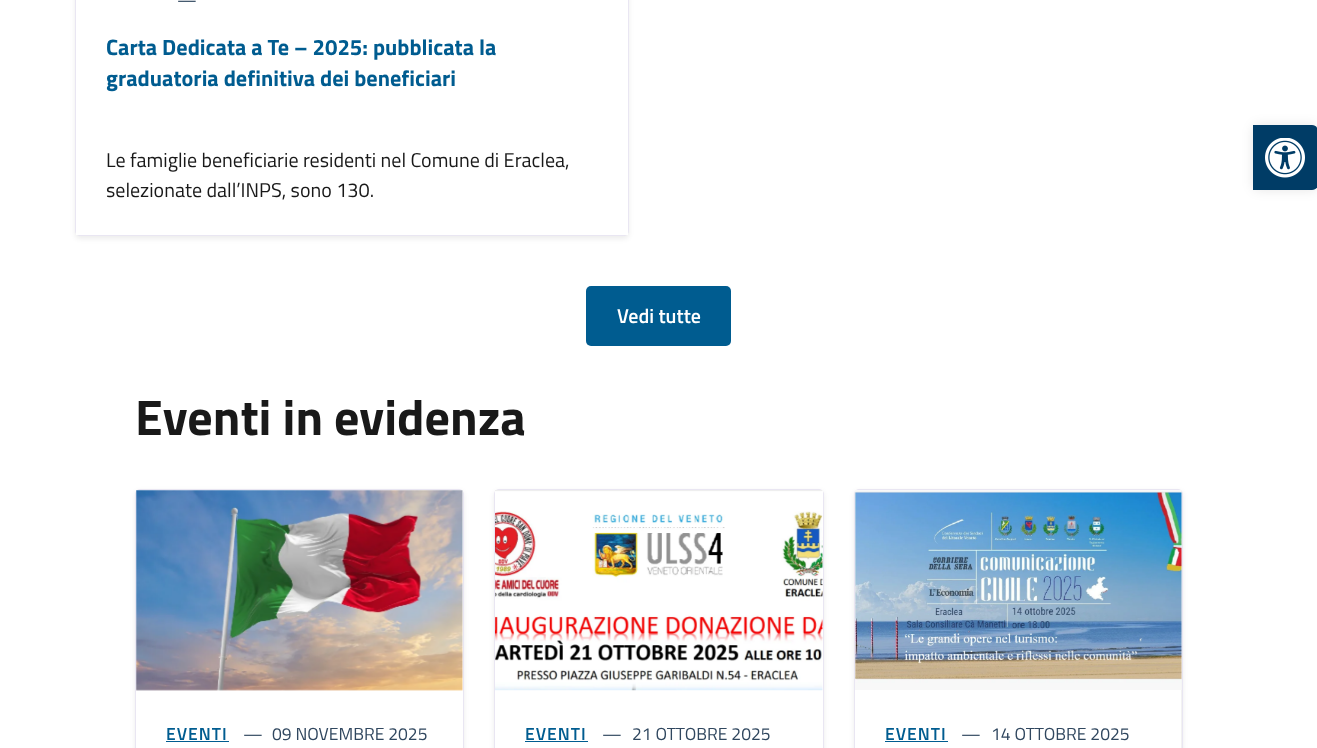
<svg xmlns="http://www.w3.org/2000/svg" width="1317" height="748">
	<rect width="100%" height="100%" fill="#FFFFFF" />
	<rect x="75" y="-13" width="554" height="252" rx="5" fill="#000000" fill-opacity="0.07" filter="blur(2.5px)" />
	<rect x="75.5" y="-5.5" width="553" height="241" rx="4.5" fill="none" stroke="#E9E6F2" />
	<rect x="76" y="0" width="552" height="235" fill="#FFFFFF" />
	<text x="177" y="6" font-family="Titillium Web" font-size="17.5" fill="#30475F">—</text>
	<g font-family="Titillium Web" font-size="22.25" font-weight="700" fill="#005C90">
		<text x="106" y="55">Carta Dedicata a Te – 2025: pubblicata la</text>
		<text x="106" y="86">graduatoria definitiva dei beneficiari</text>
	</g>
	<g font-family="Titillium Web" font-size="20" fill="#191919">
		<text x="106" y="167">Le famiglie beneficiarie residenti nel Comune di Eraclea,</text>
		<text x="106" y="197">selezionate dall’INPS, sono 130.</text>
	</g>
	<rect x="586" y="286" width="145" height="60" rx="5" fill="#005C90" />
	<text x="617" y="323" font-family="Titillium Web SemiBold" font-size="20" font-weight="600" fill="#FFFFFF">Vedi tutte</text>
	<text x="135" y="435" font-family="Titillium Web" font-size="50" font-weight="700" fill="#191919">Eventi in evidenza</text>
	<rect x="135" y="491" width="329" height="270" rx="5" fill="#000000" fill-opacity="0.07" filter="blur(2.5px)" />
	<rect x="135.5" y="489.5" width="328" height="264" rx="4.5" fill="none" stroke="#E9E6F2" />
	<rect x="136" y="490" width="327" height="258" fill="#FFFFFF" />
	<image x="136" y="490" width="327" height="201" href="assets/img1.png" />
	<text x="166" y="740" font-family="Titillium Web SemiBold" font-size="17.5" font-weight="600" letter-spacing="1" fill="#005C90">EVENTI</text>
	<rect x="166" y="741" width="63" height="1" fill="#005C90" />
	<g font-family="Titillium Web" font-size="17.5" fill="#30475F">
		<text x="243" y="740">—</text>
		<text x="272" y="740">09 NOVEMBRE 2025</text>
	</g>
	<rect x="494" y="491" width="330" height="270" rx="5" fill="#000000" fill-opacity="0.07" filter="blur(2.5px)" />
	<rect x="494.5" y="489.5" width="329" height="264" rx="4.5" fill="none" stroke="#E9E6F2" />
	<rect x="495" y="490" width="328" height="258" fill="#FFFFFF" />
	<image x="495" y="490" width="328" height="201" href="assets/img2.png" />
	<text x="525" y="740" font-family="Titillium Web SemiBold" font-size="17.5" font-weight="600" letter-spacing="1" fill="#005C90">EVENTI</text>
	<rect x="525" y="741" width="63" height="1" fill="#005C90" />
	<g font-family="Titillium Web" font-size="17.5" fill="#30475F">
		<text x="602" y="740">—</text>
		<text x="632" y="740">21 OTTOBRE 2025</text>
	</g>
	<rect x="854" y="491" width="329" height="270" rx="5" fill="#000000" fill-opacity="0.07" filter="blur(2.5px)" />
	<rect x="854.5" y="489.5" width="328" height="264" rx="4.5" fill="none" stroke="#E9E6F2" />
	<rect x="855" y="690" width="326" height="58" fill="#FFFFFF" />
	<image x="855" y="490" width="327" height="200" href="assets/img3.png" />
	<text x="885" y="740" font-family="Titillium Web SemiBold" font-size="17.5" font-weight="600" letter-spacing="1" fill="#005C90">EVENTI</text>
	<rect x="885" y="741" width="63" height="1" fill="#005C90" />
	<g font-family="Titillium Web" font-size="17.5" fill="#30475F">
		<text x="961" y="740">—</text>
		<text x="991" y="740">14 OTTOBRE 2025</text>
	</g>
	<rect x="1253" y="125" width="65" height="65" rx="6" fill="#000000" fill-opacity="0.1" filter="blur(6px)" />
	<path d="M1253 125H1312C1315.5 125 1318 127.5 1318 131V184C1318 187.5 1315.5 190 1312 190H1253Z" fill="#003C66" />
	<image x="1265" y="138" width="40" height="40" href="assets/img4.png" />
</svg>
